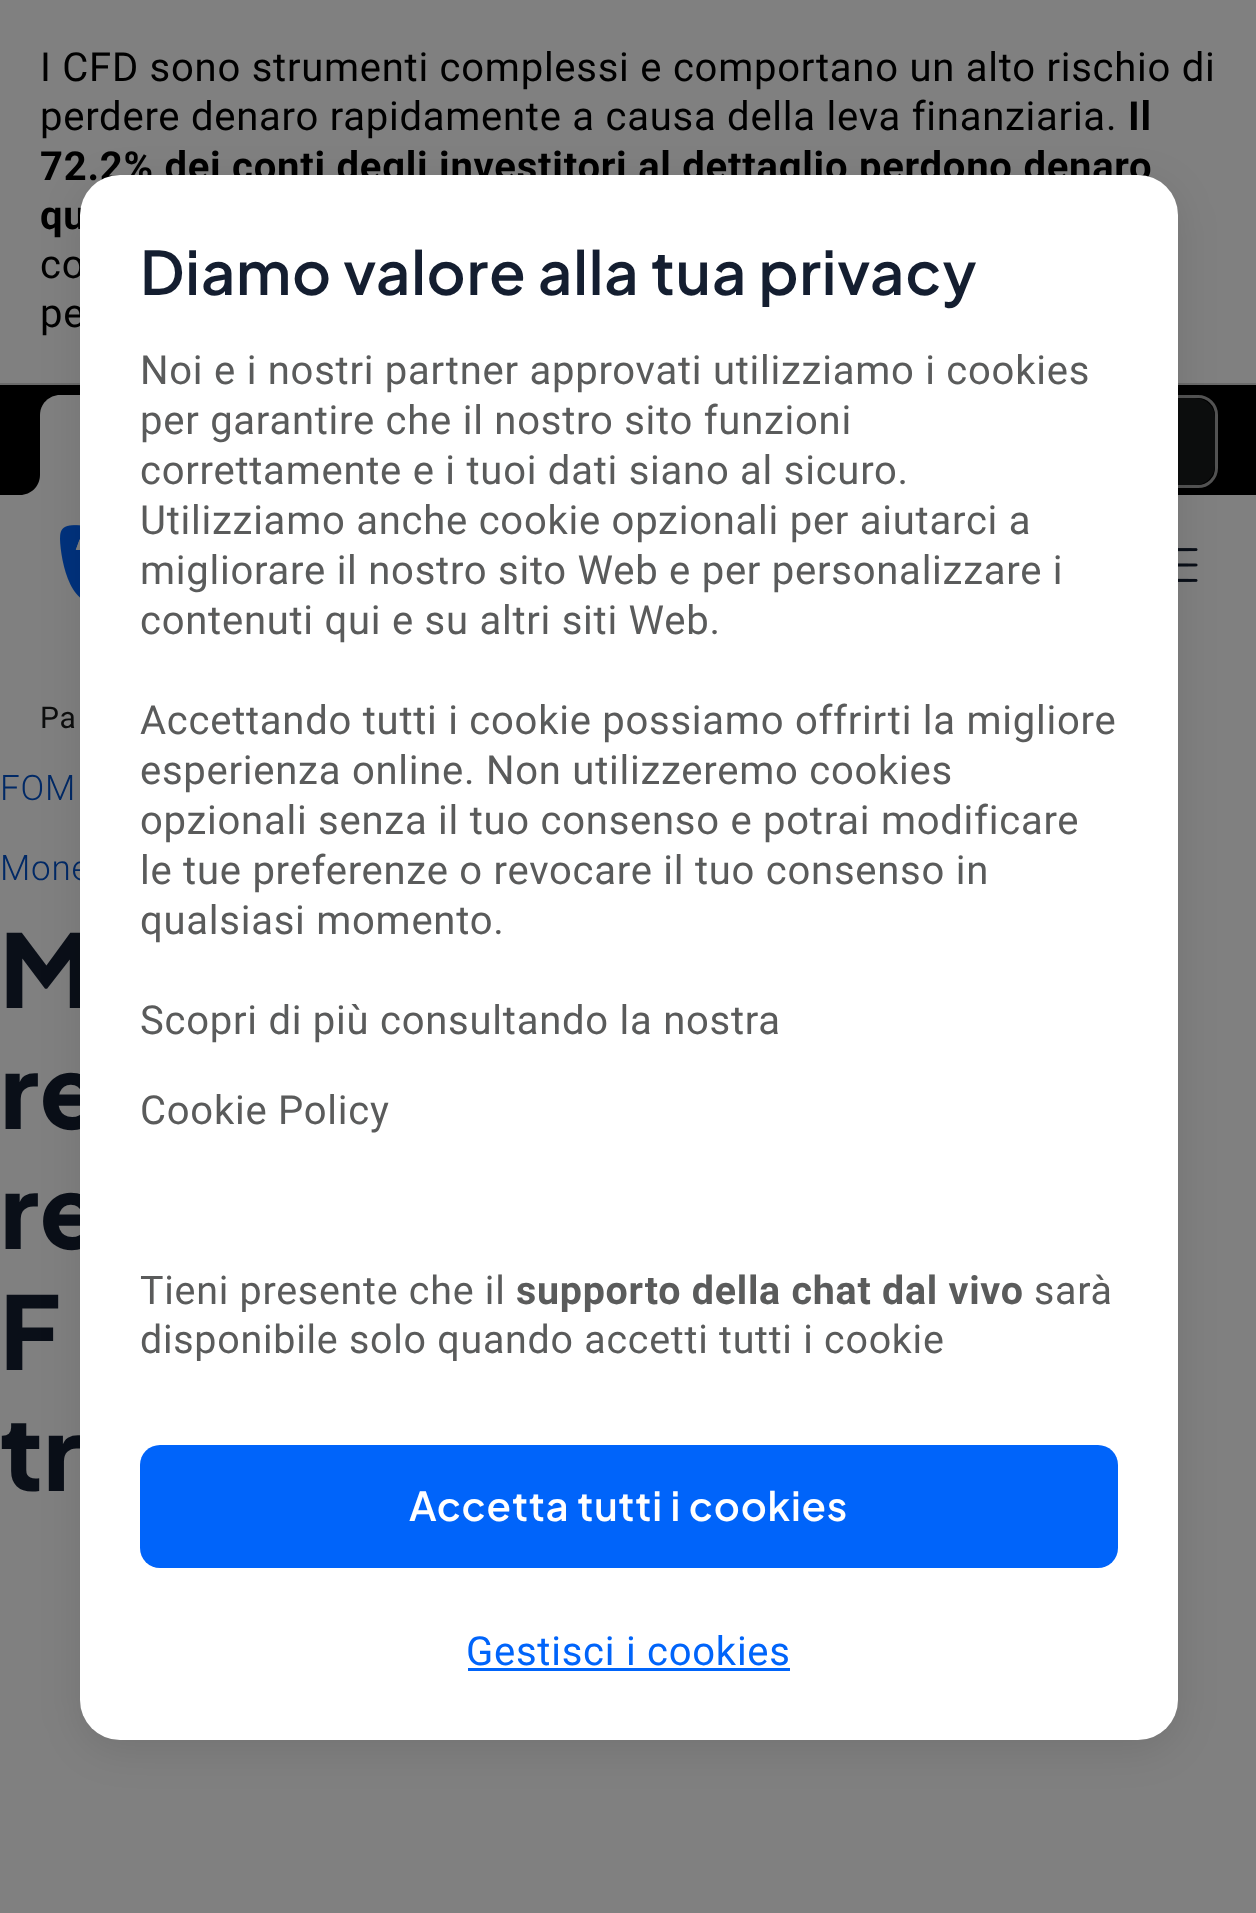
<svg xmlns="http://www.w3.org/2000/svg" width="1256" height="1913">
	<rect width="100%" height="100%" fill="#808080" />
	<rect x="0" y="383" width="1256" height="2" fill="#6B6B6B" />
	<g font-family="Roboto" font-size="40" letter-spacing="0.75" fill="#000000">
		<text x="40" y="81">I CFD sono strumenti complessi e comportano un alto rischio di</text>
		<text x="40" y="130">perdere denaro rapidamente a causa della leva finanziaria.</text>
	</g>
	<g font-family="Roboto" font-size="40" font-weight="700" letter-spacing="0.75" fill="#000000">
		<text x="1128" y="130">Il</text>
		<text x="40" y="180">72.2% dei conti degli investitori al dettaglio perdono denaro</text>
		<text x="40" y="229">qu</text>
	</g>
	<g font-family="Roboto" font-size="40" letter-spacing="0.75" fill="#000000">
		<text x="40" y="278">co</text>
		<text x="40" y="327">pe</text>
	</g>
	<rect x="0" y="385" width="1256" height="110" fill="#000000" />
	<path d="M60 395H228C239 395 248 404 248 415V495H40V415C40 404 49 395 60 395Z" fill="#808080" />
	<rect x="20" y="475" width="20" height="20" fill="#808080" />
	<path d="M20 455C31 455 40 464 40 475C40 486 31 495 20 495Z" fill="#000000" />
	<rect x="966.5" y="396.5" width="250" height="90" rx="18.5" fill="none" stroke="#535353" stroke-width="3" />
	<rect x="968" y="398" width="247" height="87" rx="20" fill="#0D0E0E" />
	<image x="60" y="525" width="20" height="73" href="assets/img1.png" />
	<image x="1178" y="548" width="20" height="34" href="assets/img2.png" />
	<text x="40" y="728" font-family="Roboto" font-size="30" letter-spacing="0.75" fill="#0D0E0E">Pa</text>
	<g font-family="Roboto" font-size="35" font-weight="300" letter-spacing="0.75" fill="#002966">
		<text x="0" y="800">FOM</text>
		<text x="0" y="880">Mone</text>
	</g>
	<g font-family="Plus Jakarta Sans" font-size="101" font-weight="800" letter-spacing="0.75" fill="#0A0F18">
		<text x="0" y="1008">M</text>
		<text x="0" y="1129">re</text>
		<text x="0" y="1249">re</text>
		<text x="0" y="1370">F</text>
		<text x="0" y="1491">tr</text>
	</g>
	<rect x="80" y="185" width="1098" height="1565" rx="40" fill="#000000" fill-opacity="0.1" filter="blur(20px)" />
	<rect x="80" y="175" width="1098" height="1565" rx="40" fill="#FFFFFF" />
	<text x="140" y="295" font-family="Plus Jakarta Sans" font-size="60" font-weight="600" letter-spacing="0.75" fill="#141E30">Diamo valore alla tua privacy</text>
	<g font-family="Roboto" font-size="40" letter-spacing="0.75" fill="#5A5B5B">
		<text x="140" y="384">Noi e i nostri partner approvati utilizziamo i cookies</text>
		<text x="140" y="434">per garantire che il nostro sito funzioni</text>
		<text x="140" y="484">correttamente e i tuoi dati siano al sicuro.</text>
		<text x="140" y="534">Utilizziamo anche cookie opzionali per aiutarci a</text>
		<text x="140" y="584">migliorare il nostro sito Web e per personalizzare i</text>
		<text x="140" y="634">contenuti qui e su altri siti Web.</text>
		<text x="140" y="734">Accettando tutti i cookie possiamo offrirti la migliore</text>
		<text x="140" y="784">esperienza online. Non utilizzeremo cookies</text>
		<text x="140" y="834">opzionali senza il tuo consenso e potrai modificare</text>
		<text x="140" y="884">le tue preferenze o revocare il tuo consenso in</text>
		<text x="140" y="934">qualsiasi momento.</text>
		<text x="140" y="1034">Scopri di più consultando la nostra</text>
		<text x="140" y="1124">Cookie Policy</text>
	</g>
	<text x="140" y="1304" font-family="Roboto" font-size="39.4" letter-spacing="0.75" fill="#5A5B5B">Tieni presente che il</text>
	<text x="516" y="1304" font-family="Roboto" font-size="39.4" font-weight="700" letter-spacing="0.75" fill="#5A5B5B">supporto della chat dal vivo</text>
	<g font-family="Roboto" font-size="39.4" letter-spacing="0.75" fill="#5A5B5B">
		<text x="1034" y="1304">sarà</text>
		<text x="140" y="1353">disponibile solo quando accetti tutti i cookie</text>
	</g>
	<rect x="140" y="1445" width="978" height="123" rx="20" fill="#0064FA" />
	<text x="409" y="1521" font-family="Plus Jakarta Sans" font-size="40" font-weight="600" letter-spacing="0.75" fill="#FFFFFF">Accetta tutti i cookies</text>
	<text x="466" y="1665" font-family="Roboto" font-size="40" letter-spacing="0.75" fill="#0064FA">Gestisci i cookies</text>
	<rect x="468" y="1668" width="322" height="3" fill="#0064FA" />
</svg>
